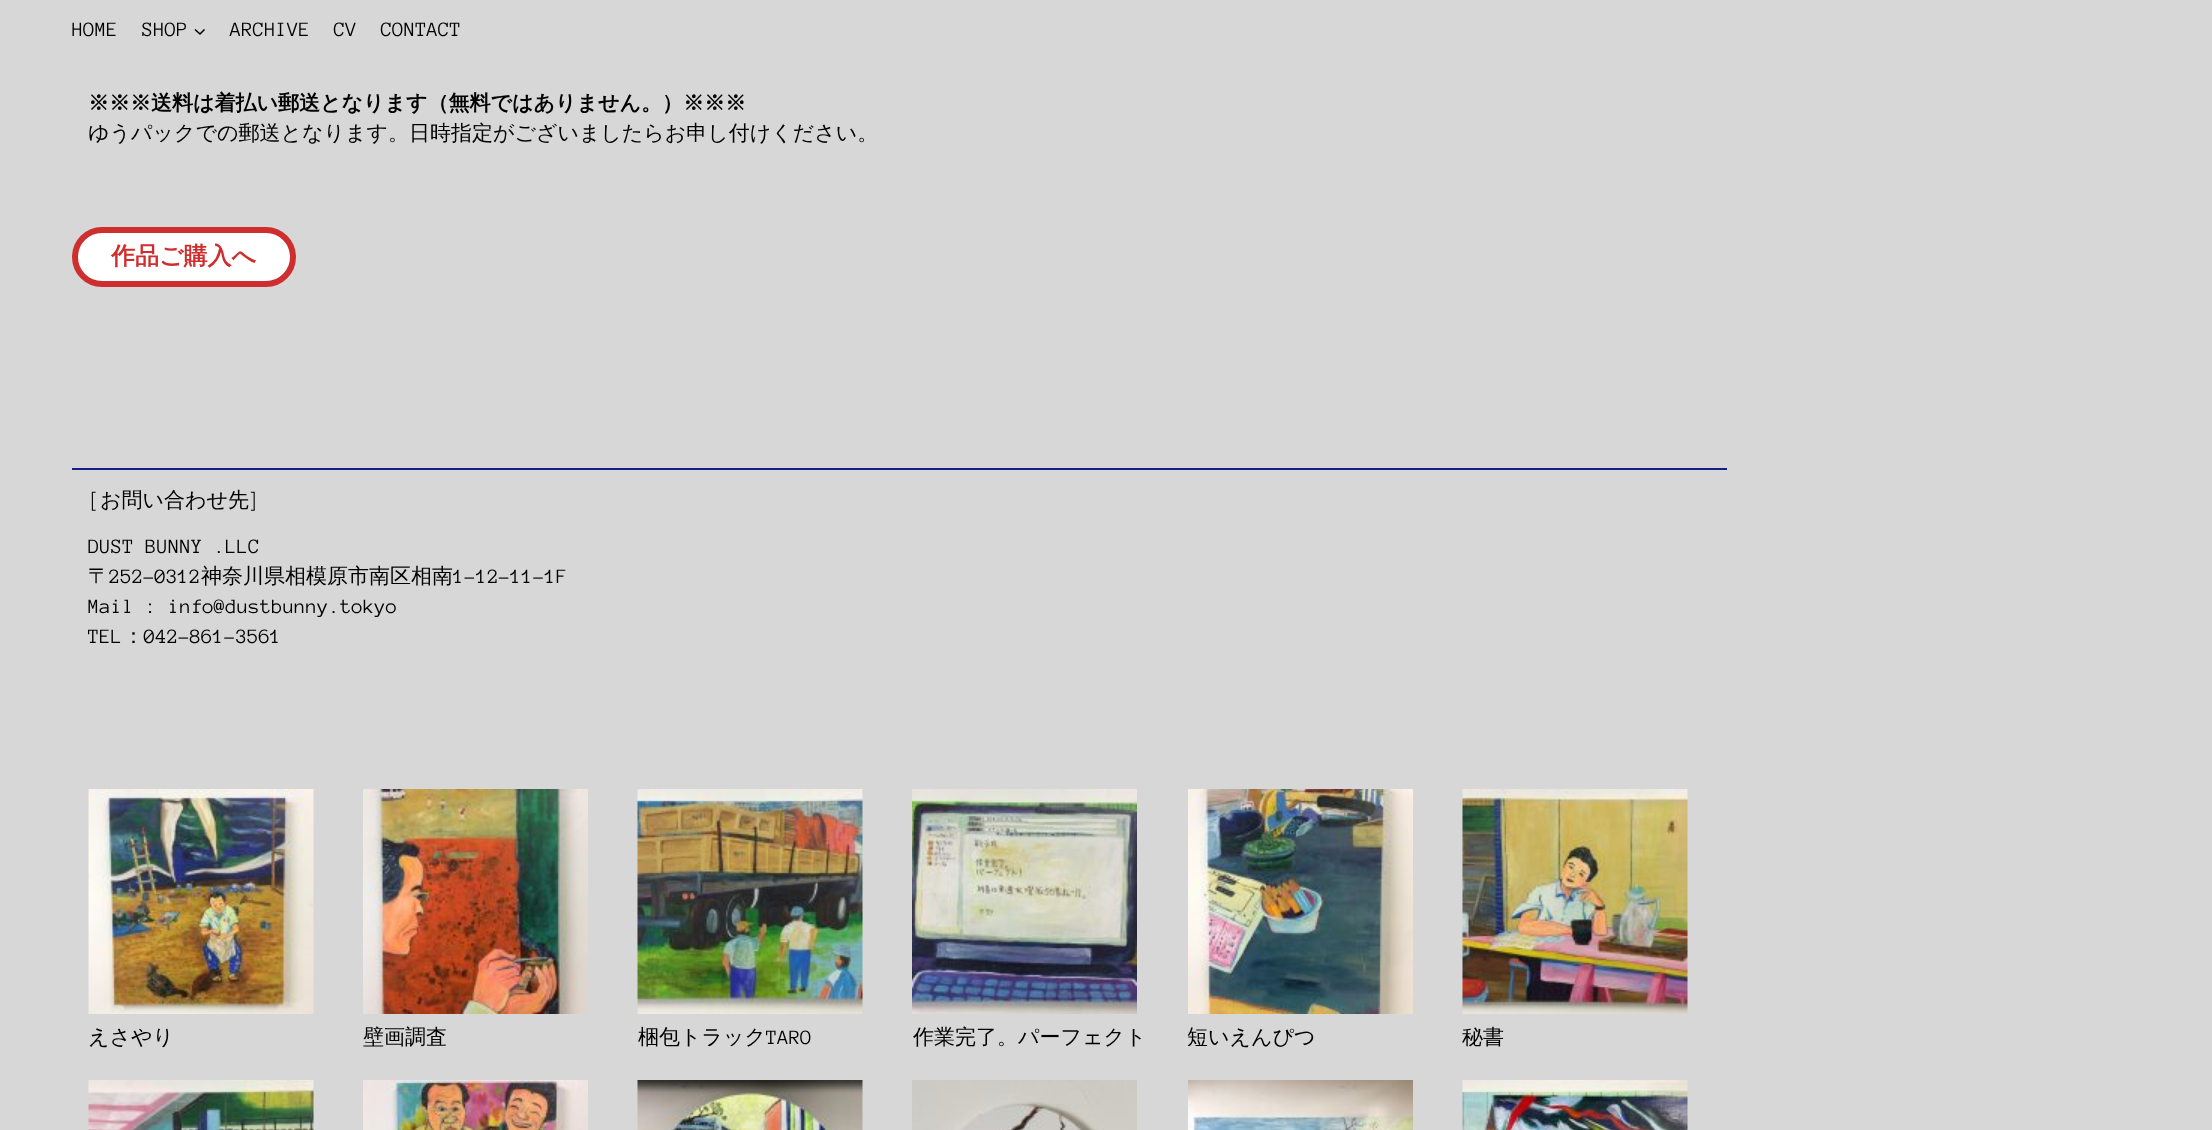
<svg xmlns="http://www.w3.org/2000/svg" width="2212" height="1130">
	<rect width="100%" height="100%" fill="#D7D7D7" />
	<g font-family="Anonymous Pro" font-size="21" fill="#000000">
		<text x="72" y="36">HOME</text>
		<text x="142" y="36">SHOP</text>
	</g>
	<path d="M195 29.5L200 34L204.5 29.5" fill="none" stroke="#000000" stroke-width="1.6" />
	<g font-family="Anonymous Pro" font-size="21" fill="#000000">
		<text x="230" y="36">ARCHIVE</text>
		<text x="334" y="36">CV</text>
		<text x="381" y="36">CONTACT</text>
	</g>
	<text x="88" y="110" font-family="WenQuanYi Zen Hei" font-size="21" font-weight="700" fill="#000000">※※※送料は着払い郵送となります（無料ではありません。）※※※</text>
	<text x="88" y="140" font-family="WenQuanYi Zen Hei" font-size="21" font-weight="500" fill="#000000">ゆうパックでの郵送となります。日時指定がございましたらお申し付けください。</text>
	<rect x="75" y="230" width="218" height="54" rx="27" fill="#FFFFFF" stroke="#CF2E2E" stroke-width="6" />
	<text x="111" y="264" font-family="WenQuanYi Zen Hei" font-size="24" font-weight="700" fill="#CF2E2E">作品ご購入へ</text>
	<rect x="72" y="468" width="1655" height="2" fill="#132088" />
	<text x="88" y="507" font-family="Anonymous Pro" font-size="21" fill="#000000">[</text>
	<text x="100" y="507" font-family="WenQuanYi Zen Hei" font-size="21" font-weight="500" fill="#000000">お問い合わせ先</text>
	<g font-family="Anonymous Pro" font-size="21" fill="#000000">
		<text x="249" y="507">]</text>
		<text x="88" y="553">DUST BUNNY .LLC</text>
	</g>
	<text x="88" y="583" font-family="WenQuanYi Zen Hei" font-size="21" font-weight="500" fill="#000000">〒</text>
	<text x="109" y="583" font-family="Anonymous Pro" font-size="21" fill="#000000">252-0312</text>
	<text x="201" y="583" font-family="WenQuanYi Zen Hei" font-size="21" font-weight="500" fill="#000000">神奈川県相模原市南区相南</text>
	<g font-family="Anonymous Pro" font-size="21" fill="#000000">
		<text x="453" y="583">1-12-11-1F</text>
		<text x="88" y="613">Mail : info@dustbunny.tokyo</text>
		<text x="88" y="643">TEL</text>
	</g>
	<text x="123" y="643" font-family="WenQuanYi Zen Hei" font-size="21" font-weight="500" fill="#000000">：</text>
	<text x="144" y="643" font-family="Anonymous Pro" font-size="21" fill="#000000">042-861-3561</text>
	<image x="88" y="789" width="226" height="225" href="assets/img1.png" />
	<text x="88" y="1044" font-family="WenQuanYi Zen Hei" font-size="21" font-weight="500" fill="#000000">えさやり</text>
	<image x="363" y="789" width="225" height="225" href="assets/img2.png" />
	<text x="363" y="1044" font-family="WenQuanYi Zen Hei" font-size="21" font-weight="500" fill="#000000">壁画調査</text>
	<image x="637" y="789" width="226" height="225" href="assets/img3.png" />
	<text x="638" y="1044" font-family="WenQuanYi Zen Hei" font-size="21" font-weight="500" fill="#000000">梱包トラック</text>
	<text x="766" y="1044" font-family="Anonymous Pro" font-size="21" fill="#000000">TARO</text>
	<image x="912" y="789" width="225" height="225" href="assets/img4.png" />
	<text x="913" y="1044" font-family="WenQuanYi Zen Hei" font-size="21" font-weight="500" fill="#000000">作業完了。パーフェクト</text>
	<image x="1188" y="789" width="225" height="225" href="assets/img5.png" />
	<text x="1187" y="1044" font-family="WenQuanYi Zen Hei" font-size="21" font-weight="500" fill="#000000">短いえんぴつ</text>
	<image x="1462" y="789" width="226" height="225" href="assets/img6.png" />
	<text x="1462" y="1044" font-family="WenQuanYi Zen Hei" font-size="21" font-weight="500" fill="#000000">秘書</text>
	<image x="88" y="1080" width="226" height="50" href="assets/img7.png" />
	<image x="363" y="1080" width="225" height="50" href="assets/img8.png" />
	<image x="637" y="1080" width="226" height="50" href="assets/img9.png" />
	<image x="912" y="1080" width="225" height="50" href="assets/img10.png" />
	<image x="1188" y="1080" width="225" height="50" href="assets/img11.png" />
	<image x="1462" y="1080" width="226" height="50" href="assets/img12.png" />
</svg>
